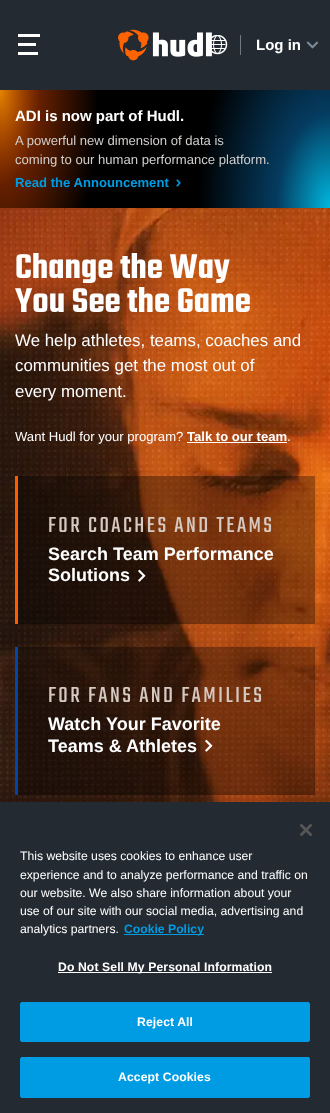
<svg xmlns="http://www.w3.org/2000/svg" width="330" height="1113">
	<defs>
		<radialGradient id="g1" gradientUnits="userSpaceOnUse" cx="0" cy="0" r="1" gradientTransform="matrix(132 0 0 236 330 208)"><stop offset="0" stop-color="#00B8DF" /><stop offset="0.4" stop-color="#053C61" /><stop offset="1" stop-color="#000000" /></radialGradient>
		<radialGradient id="g2" gradientUnits="userSpaceOnUse" cx="0" cy="0" r="1" gradientTransform="matrix(99 0 0 236 0 90)"><stop offset="0" stop-color="#FF9200" stop-opacity="0.9" /><stop offset="0.4" stop-color="#FF5000" stop-opacity="0.4" /><stop offset="1" stop-color="#FF5000" stop-opacity="0" /></radialGradient>
	</defs>
	<rect width="100%" height="100%" fill="#232A31" />
	<rect x="18" y="34" width="22" height="3" fill="#FFFFFF" />
	<rect x="18" y="43" width="18" height="3" fill="#FFFFFF" />
	<rect x="18" y="52" width="20" height="3" fill="#FFFFFF" />
	<image x="118" y="29" width="94" height="32" href="assets/img1.png" />
	<rect x="240" y="35" width="1" height="20" fill="#717880" />
	<image x="211" y="35" width="17" height="20" href="assets/img2.png" />
	<text x="256" y="50" font-family="Liberation Sans" font-size="15" font-weight="700" fill="#FFFFFF">Log in</text>
	<image x="306" y="41" width="13" height="8" href="assets/img3.png" />
	<rect x="0" y="90" width="330" height="118" fill="url(#g1)" />
	<rect x="0" y="90" width="96" height="118" fill="url(#g2)" />
	<text x="15" y="121" font-family="Liberation Sans" font-size="15" font-weight="700" fill="#FFFFFF">ADI is now part of Hudl.</text>
	<g font-family="Liberation Sans" font-size="13.1" fill="#D1CECC">
		<text x="15" y="145">A powerful new dimension of data is</text>
		<text x="15" y="164">coming to our human performance platform.</text>
	</g>
	<text x="15" y="187" font-family="Liberation Sans" font-size="13.1" font-weight="700" fill="#009CE3">Read the Announcement</text>
	<image x="176" y="179" width="5" height="8" href="assets/img4.png" />
	<image x="0" y="208" width="330" height="594" href="assets/img5.png" />
	<g font-family="Teko" font-size="37.5" font-weight="600" fill="#FFFFFF">
		<text x="15" y="278">Change the Way</text>
		<text x="15" y="312">You See the Game</text>
	</g>
	<g font-family="Liberation Sans" font-size="16.9" fill="#FFFFFF">
		<text x="15" y="346">We help athletes, teams, coaches and</text>
		<text x="15" y="371">communities get the most out of</text>
		<text x="15" y="397">every moment.</text>
	</g>
	<text x="15" y="441" font-family="Liberation Sans" font-size="13.1" fill="#FFFFFF">Want Hudl for your program?</text>
	<text x="187" y="441" font-family="Liberation Sans" font-size="13.1" font-weight="700" fill="#FFFFFF">Talk to our team</text>
	<rect x="187" y="442" width="100" height="1" fill="#FFFFFF" />
	<text x="287" y="441" font-family="Liberation Sans" font-size="13.1" fill="#FFFFFF">.</text>
	<rect x="15" y="476" width="3" height="148" fill="#FF5C00" />
	<text x="48" y="532" font-family="Teko" font-size="24" letter-spacing="2.4" fill="#D5C9C2">FOR COACHES AND TEAMS</text>
	<g font-family="Liberation Sans" font-size="18" font-weight="700" fill="#FFFFFF">
		<text x="48" y="560">Search Team Performance</text>
		<text x="48" y="581">Solutions</text>
	</g>
	<image x="138" y="569" width="8" height="13" href="assets/img6.png" />
	<rect x="15" y="647" width="3" height="148" fill="#0046AF" />
	<text x="48" y="702" font-family="Teko" font-size="24" letter-spacing="2.4" fill="#D5C9C2">FOR FANS AND FAMILIES</text>
	<g font-family="Liberation Sans" font-size="18" font-weight="700" fill="#FFFFFF">
		<text x="48" y="730">Watch Your Favorite</text>
		<text x="48" y="752">Teams &amp; Athletes</text>
	</g>
	<image x="205" y="739" width="8" height="13" href="assets/img7.png" />
	<rect x="0" y="802" width="330" height="311" fill="#000000" fill-opacity="0.2" filter="blur(9px)" />
	<rect x="0" y="802" width="330" height="311" fill="#232A31" />
	<image x="300" y="824" width="12" height="12" href="assets/img8.png" />
	<g font-family="Liberation Sans" font-size="12.2" fill="#FFFFFF">
		<text x="20" y="860">This website uses cookies to enhance user</text>
		<text x="20" y="879">experience and to analyze performance and traffic on</text>
		<text x="20" y="897">our website. We also share information about your</text>
		<text x="20" y="915">use of our site with our social media, advertising and</text>
		<text x="20" y="933">analytics partners.</text>
	</g>
	<rect x="124" y="934" width="80" height="1" fill="#009CE3" />
	<text x="124" y="933" font-family="Liberation Sans" font-size="12.2" font-weight="700" fill="#009CE3">Cookie Policy</text>
	<rect x="58" y="972" width="214" height="1" fill="#FFFFFF" />
	<text x="58" y="971" font-family="Liberation Sans" font-size="12.2" font-weight="700" letter-spacing="0.1" fill="#FFFFFF">Do Not Sell My Personal Information</text>
	<rect x="20.5" y="1002.5" width="289" height="39" rx="1.5" fill="#009CE3" stroke="#009CE3" />
	<text x="137" y="1026" font-family="Liberation Sans" font-size="12.2" font-weight="700" letter-spacing="0.1" fill="#FFFFFF">Reject All</text>
	<rect x="20.5" y="1057.5" width="289" height="40" rx="1.5" fill="#009CE3" stroke="#009CE3" />
	<text x="118" y="1081" font-family="Liberation Sans" font-size="12.2" font-weight="700" letter-spacing="0.1" fill="#FFFFFF">Accept Cookies</text>
</svg>
